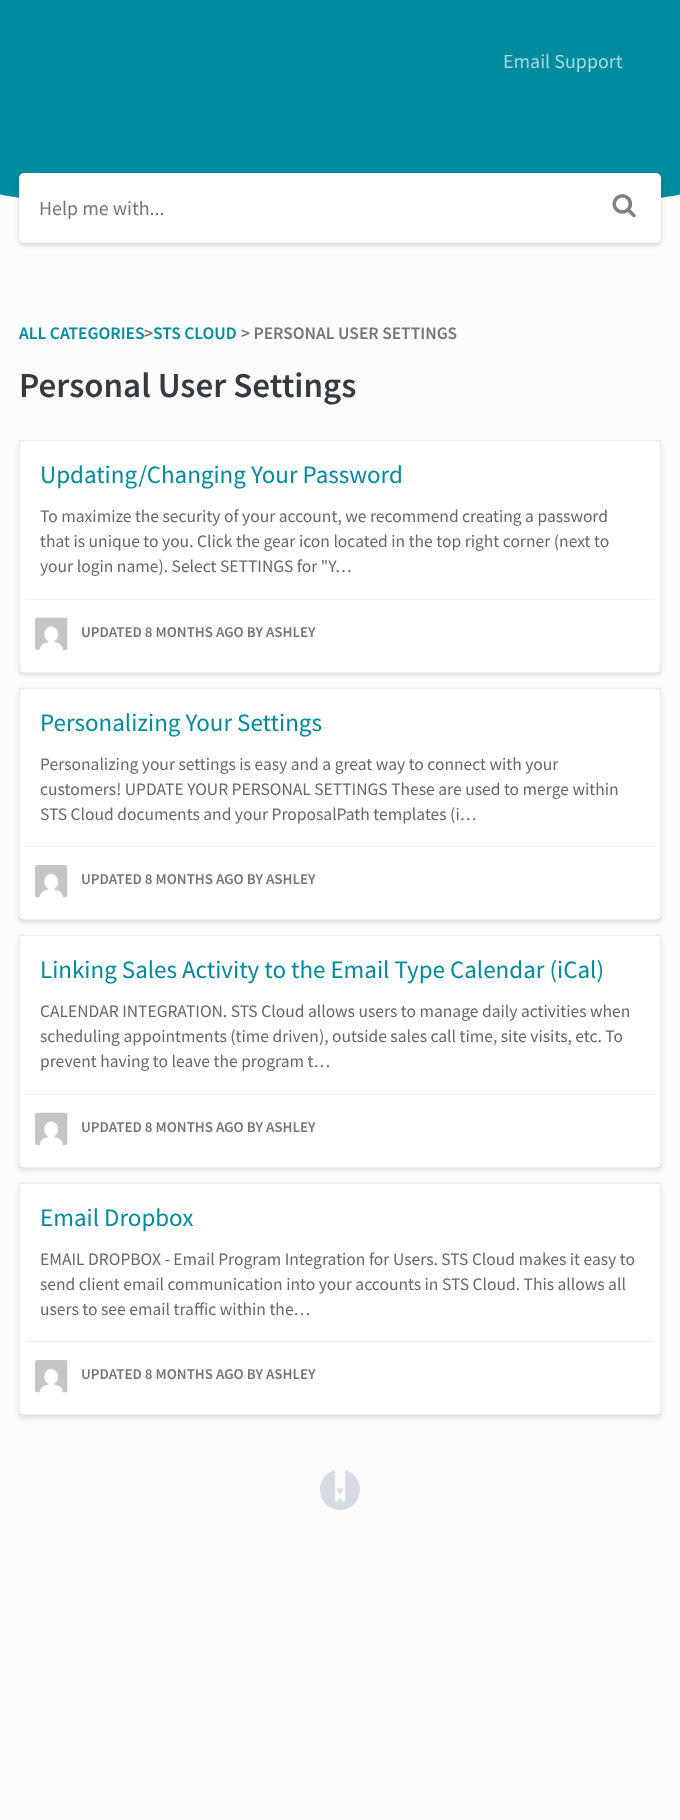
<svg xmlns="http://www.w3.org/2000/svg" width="680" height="1820">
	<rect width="100%" height="100%" fill="#FBFCFE" />
	<path d="M-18 0H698C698 0 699 1 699 1V186C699 201 538 212 340 212C142 212-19 201-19 186V1C-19 1-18 0-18 0Z" fill="#008C9E" />
	<text x="503" y="68" font-family="Source Sans Pro" font-size="20" fill="#A9D8DE">Email Support</text>
	<rect x="19" y="175" width="642" height="70" rx="5" fill="#000000" fill-opacity="0.16" filter="blur(2.5px)" />
	<rect x="19" y="173" width="642" height="70" rx="5" fill="#FFFFFF" />
	<text x="39" y="215" font-family="Source Sans Pro" font-size="20" fill="#757575">Help me with...</text>
	<image x="612" y="194" width="24" height="24" href="assets/img1.png" />
	<text x="19" y="339" font-family="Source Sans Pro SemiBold" font-size="17.5" font-weight="600" fill="#008C9E">ALL CATEGORIES</text>
	<text x="144" y="339" font-family="Source Sans Pro SemiBold" font-size="17.5" font-weight="600" fill="#757575">&gt;</text>
	<text x="153" y="339" font-family="Source Sans Pro SemiBold" font-size="17.5" font-weight="600" fill="#008C9E">STS CLOUD</text>
	<text x="241" y="339" font-family="Source Sans Pro SemiBold" font-size="17.5" font-weight="600" fill="#757575">&gt; PERSONAL USER SETTINGS</text>
	<text x="19" y="397" font-family="Source Sans Pro SemiBold" font-size="35" font-weight="600" fill="#373A3C">Personal User Settings</text>
	<rect x="19" y="443" width="642" height="232" rx="5" fill="#000000" fill-opacity="0.12" filter="blur(2.5px)" />
	<rect x="19" y="440" width="642" height="233" rx="5" fill="#FFFFFF" />
	<rect x="19.5" y="440.5" width="641" height="232" fill="none" stroke="#000000" stroke-opacity="0.06" />
	<text x="40" y="483" font-family="Source Sans Pro" font-size="25" fill="#008C9E">Updating/Changing Your Password</text>
	<g font-family="Source Sans Pro" font-size="17.5" fill="#676767">
		<text x="40" y="522">To maximize the security of your account, we recommend creating a password</text>
		<text x="40" y="547">that is unique to you. Click the gear icon located in the top right corner (next to</text>
		<text x="40" y="572">your login name). Select SETTINGS for "Y…</text>
	</g>
	<rect x="25" y="599" width="630" height="1" fill="#F0F0F0" />
	<image x="35" y="617" width="33" height="33" href="assets/img2.png" />
	<text x="81" y="637" font-family="Source Sans Pro SemiBold" font-size="15" font-weight="600" fill="#757575">UPDATED 8 MONTHS AGO BY ASHLEY</text>
	<rect x="19" y="690" width="642" height="233" rx="5" fill="#000000" fill-opacity="0.12" filter="blur(2.5px)" />
	<rect x="19" y="688" width="642" height="232" rx="5" fill="#FFFFFF" />
	<rect x="19.5" y="688.5" width="641" height="231" fill="none" stroke="#000000" stroke-opacity="0.06" />
	<text x="40" y="731" font-family="Source Sans Pro" font-size="25" fill="#008C9E">Personalizing Your Settings</text>
	<g font-family="Source Sans Pro" font-size="17.5" fill="#676767">
		<text x="40" y="770">Personalizing your settings is easy and a great way to connect with your</text>
		<text x="40" y="795">customers! UPDATE YOUR PERSONAL SETTINGS These are used to merge within</text>
		<text x="40" y="820">STS Cloud documents and your ProposalPath templates (i…</text>
	</g>
	<rect x="25" y="846" width="630" height="1" fill="#F0F0F0" />
	<image x="35" y="865" width="33" height="33" href="assets/img3.png" />
	<text x="81" y="884" font-family="Source Sans Pro SemiBold" font-size="15" font-weight="600" fill="#757575">UPDATED 8 MONTHS AGO BY ASHLEY</text>
	<rect x="19" y="938" width="642" height="232" rx="5" fill="#000000" fill-opacity="0.12" filter="blur(2.5px)" />
	<rect x="19" y="935" width="642" height="233" rx="5" fill="#FFFFFF" />
	<rect x="19.5" y="935.5" width="641" height="232" fill="none" stroke="#000000" stroke-opacity="0.06" />
	<text x="40" y="978" font-family="Source Sans Pro" font-size="25" fill="#008C9E">Linking Sales Activity to the Email Type Calendar (iCal)</text>
	<g font-family="Source Sans Pro" font-size="17.5" fill="#676767">
		<text x="40" y="1017">CALENDAR INTEGRATION. STS Cloud allows users to manage daily activities when</text>
		<text x="40" y="1042">scheduling appointments (time driven), outside sales call time, site visits, etc. To</text>
		<text x="40" y="1067">prevent having to leave the program t…</text>
	</g>
	<rect x="25" y="1094" width="630" height="1" fill="#F0F0F0" />
	<image x="35" y="1112" width="33" height="33" href="assets/img2.png" />
	<text x="81" y="1132" font-family="Source Sans Pro SemiBold" font-size="15" font-weight="600" fill="#757575">UPDATED 8 MONTHS AGO BY ASHLEY</text>
	<rect x="19" y="1185" width="642" height="233" rx="5" fill="#000000" fill-opacity="0.12" filter="blur(2.5px)" />
	<rect x="19" y="1183" width="642" height="232" rx="5" fill="#FFFFFF" />
	<rect x="19.5" y="1183.5" width="641" height="231" fill="none" stroke="#000000" stroke-opacity="0.06" />
	<text x="40" y="1226" font-family="Source Sans Pro" font-size="25" fill="#008C9E">Email Dropbox</text>
	<g font-family="Source Sans Pro" font-size="17.5" fill="#676767">
		<text x="40" y="1265">EMAIL DROPBOX - Email Program Integration for Users. STS Cloud makes it easy to</text>
		<text x="40" y="1290">send client email communication into your accounts in STS Cloud. This allows all</text>
		<text x="40" y="1315">users to see email traffic within the…</text>
	</g>
	<rect x="25" y="1341" width="630" height="1" fill="#F0F0F0" />
	<image x="35" y="1360" width="33" height="33" href="assets/img3.png" />
	<text x="81" y="1379" font-family="Source Sans Pro SemiBold" font-size="15" font-weight="600" fill="#757575">UPDATED 8 MONTHS AGO BY ASHLEY</text>
	<image x="320" y="1470" width="40" height="40" href="assets/img4.png" />
</svg>
